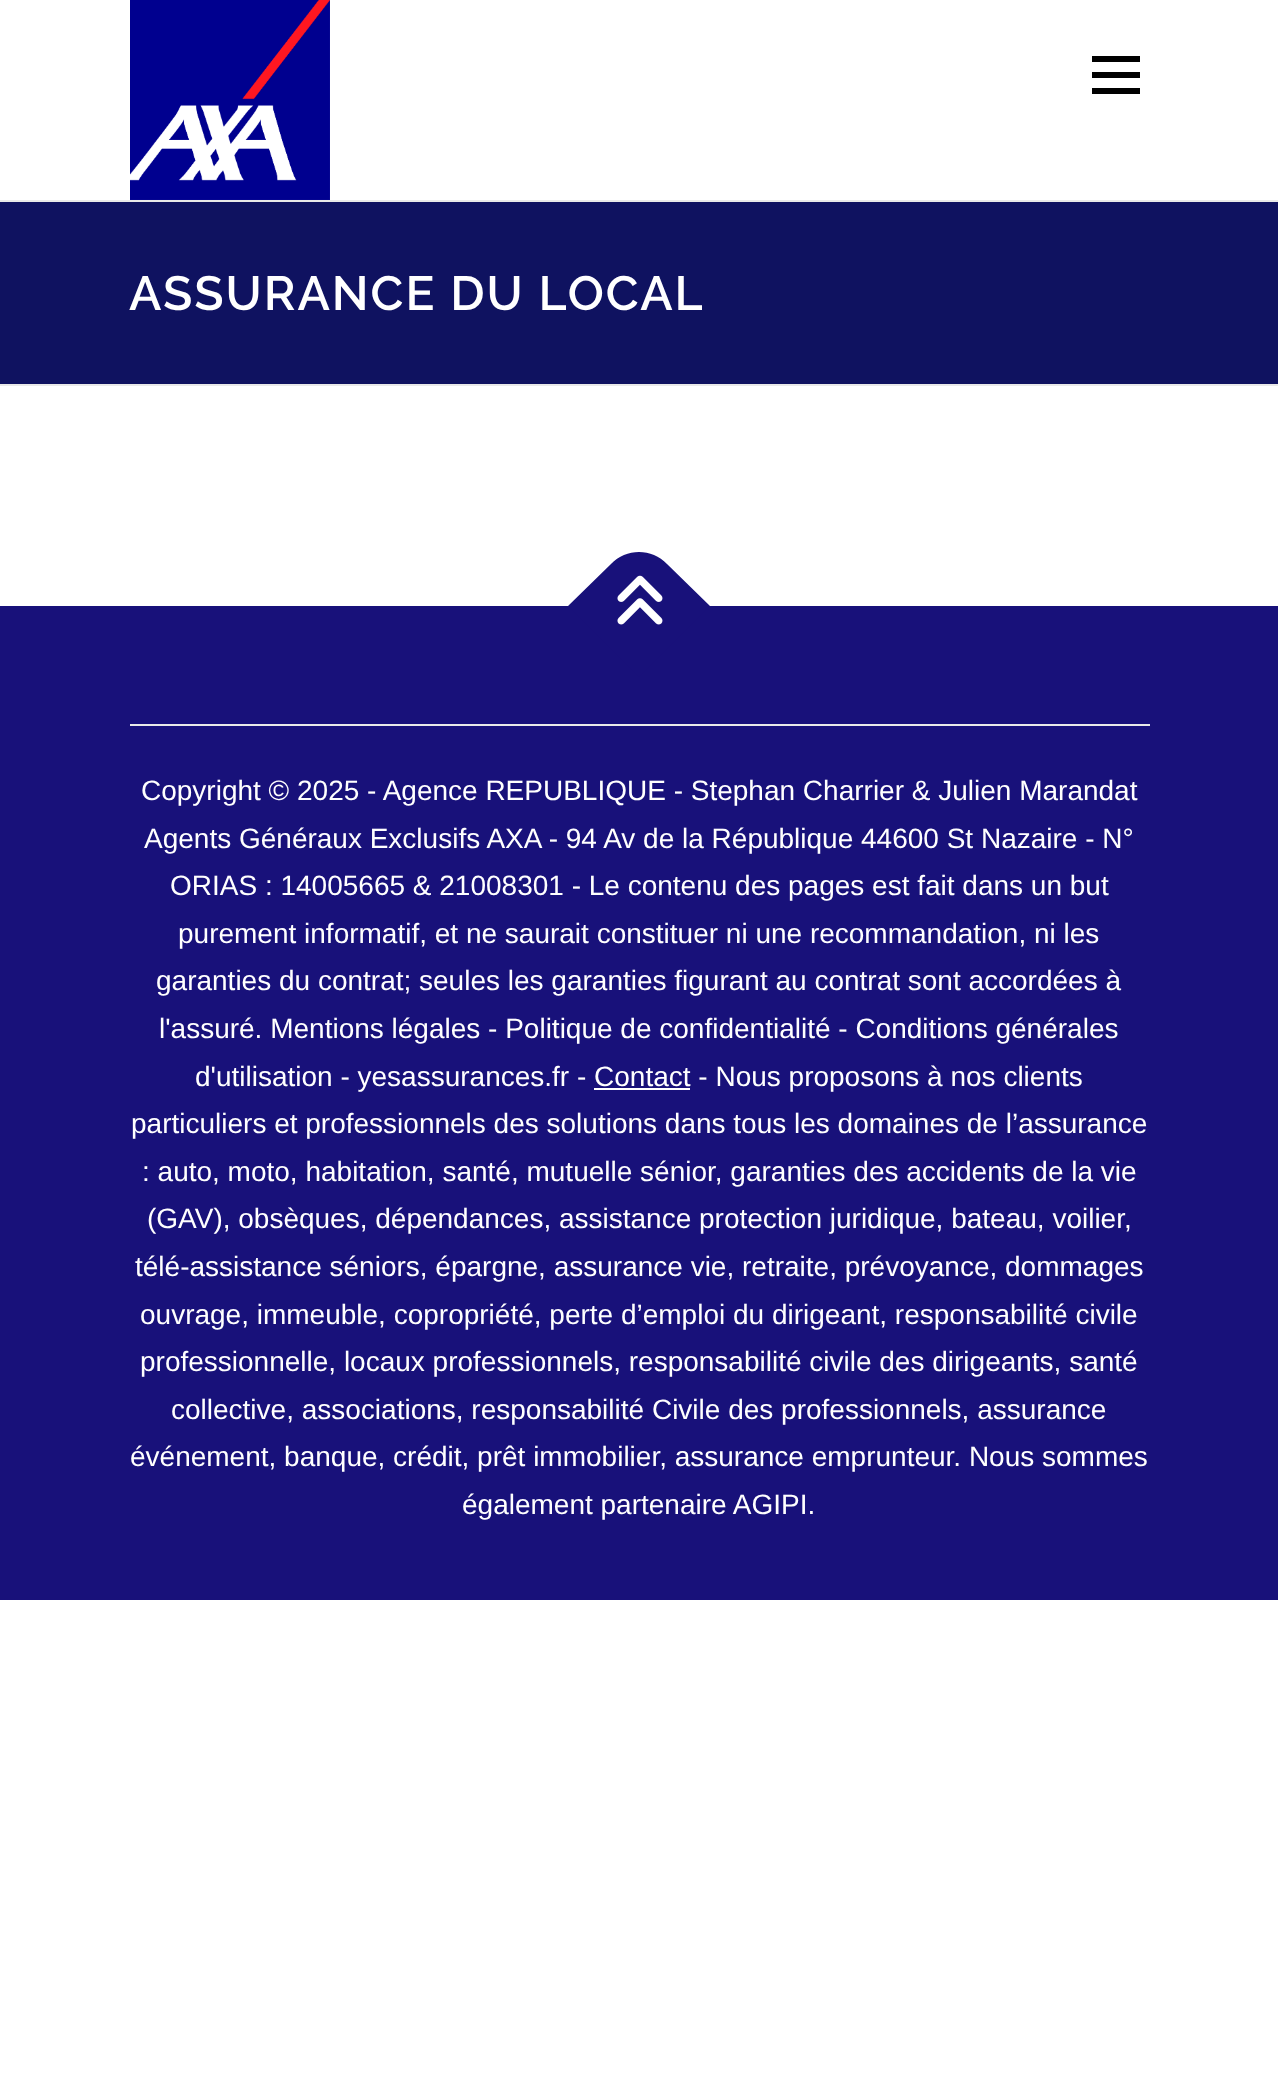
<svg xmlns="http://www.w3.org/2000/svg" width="1278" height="2082">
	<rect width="100%" height="100%" fill="#FFFFFF" />
	<image x="130" y="0" width="200" height="200" href="assets/img1.png" />
	<rect x="1092" y="72" width="48" height="6" fill="#000000" />
	<rect x="1092" y="56" width="48" height="6" fill="#000000" />
	<rect x="1092" y="88" width="48" height="6" fill="#000000" />
	<rect x="0" y="200" width="1278" height="2" fill="#E9E9E9" />
	<rect x="0" y="384" width="1278" height="2" fill="#E9E9E9" />
	<rect x="0" y="202" width="1278" height="182" fill="#0F1260" />
	<text x="129" y="310" font-family="Raleway" font-size="48" font-weight="600" letter-spacing="2" fill="#FFFFFF">ASSURANCE DU LOCAL</text>
	<rect x="0" y="606" width="1278" height="994" fill="#18117A" />
	<path d="M568 606L611 564C626 548 652 548 667 564L710 606L639 677Z" fill="#18117A" />
	<image x="617" y="575" width="46" height="50" href="assets/img2.png" />
	<rect x="130" y="724" width="1020" height="2" fill="#E9E9E9" />
	<g font-family="Liberation Sans" font-size="28" fill="#FFFFFF">
		<text x="141" y="800">Copyright © 2025 - Agence REPUBLIQUE - Stephan Charrier &amp; Julien Marandat</text>
		<text x="144" y="848">Agents Généraux Exclusifs AXA - 94 Av de la République 44600 St Nazaire - N°</text>
		<text x="170" y="895">ORIAS : 14005665 &amp; 21008301 - Le contenu des pages est fait dans un but</text>
		<text x="178" y="943">purement informatif, et ne saurait constituer ni une recommandation, ni les</text>
		<text x="156" y="990">garanties du contrat; seules les garanties figurant au contrat sont accordées à</text>
		<text x="159" y="1038">l'assuré. Mentions légales - Politique de confidentialité - Conditions générales</text>
		<text x="195" y="1086">d'utilisation - yesassurances.fr - Contact - Nous proposons à nos clients</text>
	</g>
	<rect x="594" y="1088" width="96" height="2" fill="#FFFFFF" />
	<g font-family="Liberation Sans" font-size="28" fill="#FFFFFF">
		<text x="131" y="1133">particuliers et professionnels des solutions dans tous les domaines de l’assurance</text>
		<text x="142" y="1181">: auto, moto, habitation, santé, mutuelle sénior, garanties des accidents de la vie</text>
		<text x="147" y="1228">(GAV), obsèques, dépendances, assistance protection juridique, bateau, voilier,</text>
		<text x="135" y="1276">télé-assistance séniors, épargne, assurance vie, retraite, prévoyance, dommages</text>
		<text x="140" y="1324">ouvrage, immeuble, copropriété, perte d’emploi du dirigeant, responsabilité civile</text>
		<text x="140" y="1371">professionnelle, locaux professionnels, responsabilité civile des dirigeants, santé</text>
		<text x="171" y="1419">collective, associations, responsabilité Civile des professionnels, assurance</text>
		<text x="130" y="1466">événement, banque, crédit, prêt immobilier, assurance emprunteur. Nous sommes</text>
		<text x="462" y="1514">également partenaire AGIPI.</text>
	</g>
</svg>
